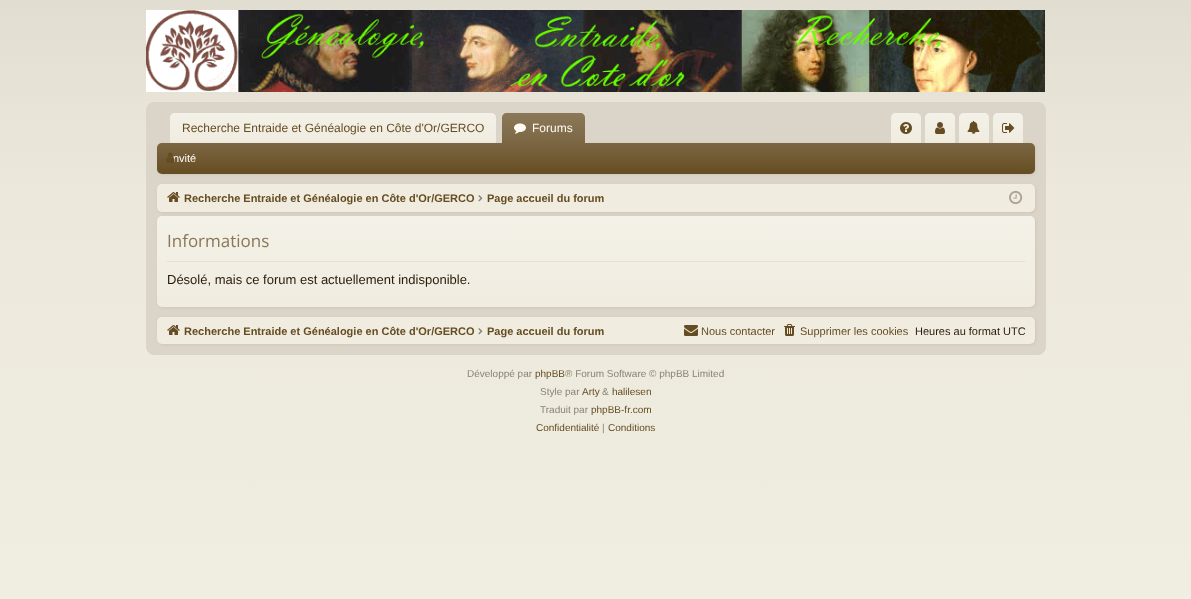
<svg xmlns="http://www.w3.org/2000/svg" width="1191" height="599">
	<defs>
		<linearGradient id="g1" gradientUnits="userSpaceOnUse" x1="596" y1="0" x2="596" y2="599"><stop offset="0" stop-color="#E2DDD1" /><stop offset="0.33" stop-color="#ECE9DC" /><stop offset="1" stop-color="#F0EEE0" /></linearGradient>
		<linearGradient id="g2" gradientUnits="userSpaceOnUse" x1="333" y1="113" x2="333" y2="143"><stop offset="0" stop-color="#FFFFFF" stop-opacity="0.25" /><stop offset="1" stop-color="#FFFFFF" stop-opacity="0" /></linearGradient>
		<linearGradient id="g3" gradientUnits="userSpaceOnUse" x1="544" y1="113" x2="544" y2="143"><stop offset="0" stop-color="#FFFFFF" stop-opacity="0.25" /><stop offset="1" stop-color="#FFFFFF" stop-opacity="0.15" /></linearGradient>
		<linearGradient id="g4" gradientUnits="userSpaceOnUse" x1="906" y1="113" x2="906" y2="143"><stop offset="0" stop-color="#FFFFFF" stop-opacity="0.25" /><stop offset="1" stop-color="#FFFFFF" stop-opacity="0" /></linearGradient>
		<linearGradient id="g5" gradientUnits="userSpaceOnUse" x1="940" y1="113" x2="940" y2="143"><stop offset="0" stop-color="#FFFFFF" stop-opacity="0.25" /><stop offset="1" stop-color="#FFFFFF" stop-opacity="0" /></linearGradient>
		<linearGradient id="g6" gradientUnits="userSpaceOnUse" x1="974" y1="113" x2="974" y2="143"><stop offset="0" stop-color="#FFFFFF" stop-opacity="0.25" /><stop offset="1" stop-color="#FFFFFF" stop-opacity="0" /></linearGradient>
		<linearGradient id="g7" gradientUnits="userSpaceOnUse" x1="1008" y1="113" x2="1008" y2="143"><stop offset="0" stop-color="#FFFFFF" stop-opacity="0.25" /><stop offset="1" stop-color="#FFFFFF" stop-opacity="0" /></linearGradient>
		<linearGradient id="g8" gradientUnits="userSpaceOnUse" x1="596" y1="143" x2="596" y2="174"><stop offset="0" stop-color="#FFFFFF" stop-opacity="0.15" /><stop offset="1" stop-color="#FFFFFF" stop-opacity="0" /></linearGradient>
		<linearGradient id="g9" gradientUnits="userSpaceOnUse" x1="596" y1="216" x2="596" y2="307"><stop offset="0" stop-color="#FFFFFF" stop-opacity="0.25" /><stop offset="1" stop-color="#FFFFFF" stop-opacity="0" /></linearGradient>
	</defs>
	<rect width="100%" height="100%" fill="#FFFFFF" />
	<rect x="0" y="0" width="1191" height="599" fill="url(#g1)" />
	<image x="146" y="10" width="899" height="82" href="assets/img1.png" />
	<rect x="146.5" y="102.5" width="899" height="252" rx="7.5" fill="#DBD5C9" stroke="#DBD5C9" />
	<path d="M175 113H491C494 113 496 115 496 118V143H170V118C170 115 172 113 175 113Z" fill="#F0ECE0" />
	<path d="M175 113H491C494 113 496 115 496 118V143H170V118C170 115 172 113 175 113Z" fill="url(#g2)" />
	<text x="182" y="132" font-family="Liberation Sans" font-size="12" fill="#654C22">Recherche Entraide et Généalogie en Côte d'Or/GERCO</text>
	<path d="M507 113H580C583 113 585 115 585 118V143H502V118C502 115 504 113 507 113Z" fill="#654C22" />
	<path d="M507 113H580C583 113 585 115 585 118V143H502V118C502 115 504 113 507 113Z" fill="url(#g3)" />
	<image x="514" y="123" width="12" height="11" href="assets/img2.png" />
	<text x="532" y="132" font-family="Liberation Sans" font-size="12" fill="#FEFBF5">Forums</text>
	<path d="M896 113H916C919 113 921 115 921 118V143H891V118C891 115 893 113 896 113Z" fill="#F0ECE0" />
	<path d="M896 113H916C919 113 921 115 921 118V143H891V118C891 115 893 113 896 113Z" fill="url(#g4)" />
	<path d="M930 113H950C953 113 955 115 955 118V143H925V118C925 115 927 113 930 113Z" fill="#F0ECE0" />
	<path d="M930 113H950C953 113 955 115 955 118V143H925V118C925 115 927 113 930 113Z" fill="url(#g5)" />
	<path d="M964 113H984C987 113 989 115 989 118V143H959V118C959 115 961 113 964 113Z" fill="#F0ECE0" />
	<path d="M964 113H984C987 113 989 115 989 118V143H959V118C959 115 961 113 964 113Z" fill="url(#g6)" />
	<path d="M998 113H1018C1021 113 1023 115 1023 118V143H993V118C993 115 995 113 998 113Z" fill="#F0ECE0" />
	<path d="M998 113H1018C1021 113 1023 115 1023 118V143H993V118C993 115 995 113 998 113Z" fill="url(#g7)" />
	<rect x="158" y="144" width="878" height="31" rx="5" fill="#654C22" fill-opacity="0.1" filter="blur(1.5px)" />
	<rect x="157" y="143" width="878" height="31" rx="5" fill="#654C22" />
	<rect x="157" y="143" width="878" height="31" rx="5" fill="url(#g8)" />
	<path d="M504 142H583C584 142 585 143 585 144H502C502 143 503 142 504 142Z" fill="#654C22" />
	<path d="M504 142H583C584 142 585 143 585 144H502C502 143 503 142 504 142Z" fill="#FFFFFF" fill-opacity="0.15" />
	<image x="900" y="122" width="12" height="12" href="assets/img3.png" />
	<image x="935" y="122" width="10" height="12" href="assets/img4.png" />
	<image x="967" y="120" width="13" height="14" href="assets/img5.png" />
	<image x="1002" y="123" width="13" height="10" href="assets/img6.png" />
	<text x="173" y="162" font-family="Liberation Sans" font-size="11" fill="#FEFBF5">nvité</text>
	<image x="166" y="152" width="9" height="11" href="assets/img7.png" />
	<rect x="158" y="185" width="878" height="28" rx="5" fill="#654C22" fill-opacity="0.1" filter="blur(1.5px)" />
	<rect x="157" y="184" width="878" height="28" rx="5" fill="#F0ECE0" />
	<image x="167" y="192" width="13" height="10" href="assets/img8.png" />
	<text x="184" y="202" font-family="Liberation Sans" font-size="11" font-weight="700" fill="#654C22">Recherche Entraide et Généalogie en Côte d'Or/GERCO</text>
	<image x="478" y="195" width="5" height="7" href="assets/img9.png" />
	<text x="487" y="202" font-family="Liberation Sans" font-size="11" font-weight="700" fill="#654C22">Page accueil du forum</text>
	<image x="1009" y="190" width="14" height="15" href="assets/img10.png" />
	<rect x="158" y="217" width="878" height="91" rx="5" fill="#654C22" fill-opacity="0.1" filter="blur(1.5px)" />
	<rect x="157" y="216" width="878" height="91" rx="5" fill="#F0ECE0" />
	<rect x="157" y="216" width="878" height="91" rx="5" fill="url(#g9)" />
	<rect x="167" y="261" width="858" height="1" fill="#E8E1CF" />
	<text x="167" y="247" font-family="Open Sans" font-size="17" fill="#897759">Informations</text>
	<text x="167" y="284" font-family="Liberation Sans" font-size="13" fill="#271B08">Désolé, mais ce forum est actuellement indisponible.</text>
	<rect x="158" y="318" width="878" height="27" rx="5" fill="#654C22" fill-opacity="0.1" filter="blur(1.5px)" />
	<rect x="157" y="317" width="878" height="27" rx="5" fill="#F0ECE0" />
	<image x="167" y="325" width="13" height="10" href="assets/img8.png" />
	<text x="184" y="335" font-family="Liberation Sans" font-size="11" font-weight="700" fill="#654C22">Recherche Entraide et Généalogie en Côte d'Or/GERCO</text>
	<image x="478" y="328" width="5" height="7" href="assets/img9.png" />
	<text x="487" y="335" font-family="Liberation Sans" font-size="11" font-weight="700" fill="#654C22">Page accueil du forum</text>
	<image x="684" y="325" width="14" height="11" href="assets/img11.png" />
	<text x="701" y="335" font-family="Liberation Sans" font-size="11" fill="#654C22">Nous contacter</text>
	<image x="784" y="324" width="11" height="12" href="assets/img12.png" />
	<text x="800" y="335" font-family="Liberation Sans" font-size="11" fill="#654C22">Supprimer les cookies</text>
	<text x="915" y="335" font-family="Liberation Sans" font-size="11" fill="#271B08">Heures au format UTC</text>
	<text x="467" y="377" font-family="Liberation Sans" font-size="10" fill="#8B8374">Développé par</text>
	<text x="535" y="377" font-family="Liberation Sans" font-size="10" fill="#654C22">phpBB</text>
	<g font-family="Liberation Sans" font-size="10" fill="#8B8374">
		<text x="565" y="377">® Forum Software © phpBB Limited</text>
		<text x="540" y="395">Style par</text>
	</g>
	<text x="582" y="395" font-family="Liberation Sans" font-size="10" fill="#654C22">Arty</text>
	<text x="602" y="395" font-family="Liberation Sans" font-size="10" fill="#8B8374">&amp;</text>
	<text x="612" y="395" font-family="Liberation Sans" font-size="10" fill="#654C22">halilesen</text>
	<text x="540" y="413" font-family="Liberation Sans" font-size="10" fill="#8B8374">Traduit par</text>
	<g font-family="Liberation Sans" font-size="10" fill="#654C22">
		<text x="591" y="413">phpBB-fr.com</text>
		<text x="536" y="431">Confidentialité</text>
	</g>
	<text x="602" y="431" font-family="Liberation Sans" font-size="10" fill="#8B8374">|</text>
	<text x="608" y="431" font-family="Liberation Sans" font-size="10" fill="#654C22">Conditions</text>
</svg>
